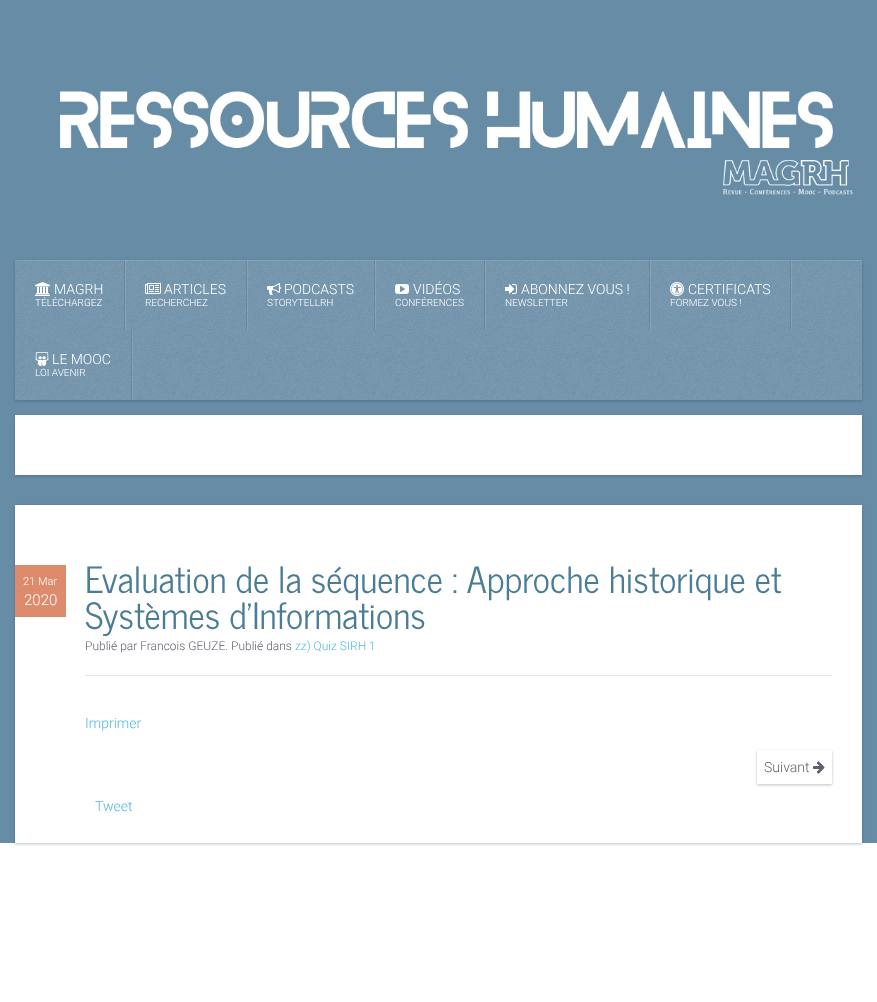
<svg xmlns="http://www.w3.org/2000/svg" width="877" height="1002">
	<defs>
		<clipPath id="clip1"><path d="M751 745H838V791H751ZM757 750H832V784H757Z" clip-rule="evenodd" /></clipPath>
	</defs>
	<rect width="100%" height="100%" fill="#FFFFFF" />
	<rect x="0" y="0" width="877" height="843" fill="#678CA6" />
	<image x="60" y="91" width="793" height="104" href="assets/img1.png" />
	<rect x="15" y="261" width="847" height="140" fill="#1E3246" fill-opacity="0.3" filter="blur(1.5px)" />
	<rect x="15" y="260" width="847" height="140" fill="#7698AF" />
	<image x="15" y="260" width="847" height="140" href="assets/img2.png" />
	<rect x="15" y="260" width="847" height="1" fill="#FFFFFF" fill-opacity="0.12" />
	<rect x="125" y="260" width="1" height="70" fill="#FFFFFF" fill-opacity="0.12" />
	<rect x="124" y="260" width="1" height="70" fill="#000000" fill-opacity="0.1" />
	<image x="35" y="282" width="15" height="14" href="assets/img3.png" />
	<text x="54" y="294" font-family="Roboto" font-size="14" font-weight="300" fill="#FFFFFF">MAGRH</text>
	<text x="35" y="306" font-family="Roboto" font-size="10" font-weight="300" fill="#FFFFFF">TÉLÉCHARGEZ</text>
	<rect x="247" y="260" width="1" height="70" fill="#FFFFFF" fill-opacity="0.12" />
	<rect x="246" y="260" width="1" height="70" fill="#000000" fill-opacity="0.1" />
	<image x="145" y="283" width="16" height="11" href="assets/img4.png" />
	<text x="164" y="294" font-family="Roboto" font-size="14" font-weight="300" fill="#FFFFFF">ARTICLES</text>
	<text x="145" y="306" font-family="Roboto" font-size="10" font-weight="300" fill="#FFFFFF">RECHERCHEZ</text>
	<rect x="375" y="260" width="1" height="70" fill="#FFFFFF" fill-opacity="0.12" />
	<rect x="374" y="260" width="1" height="70" fill="#000000" fill-opacity="0.1" />
	<image x="267" y="283" width="14" height="12" href="assets/img5.png" />
	<text x="284" y="294" font-family="Roboto" font-size="14" font-weight="300" fill="#FFFFFF">PODCASTS</text>
	<text x="267" y="306" font-family="Roboto" font-size="10" font-weight="300" fill="#FFFFFF">STORYTELLRH</text>
	<rect x="485" y="260" width="1" height="70" fill="#FFFFFF" fill-opacity="0.12" />
	<rect x="484" y="260" width="1" height="70" fill="#000000" fill-opacity="0.1" />
	<image x="395" y="284" width="14" height="10" href="assets/img6.png" />
	<text x="413" y="294" font-family="Roboto" font-size="14" font-weight="300" fill="#FFFFFF">VIDÉOS</text>
	<text x="395" y="306" font-family="Roboto" font-size="10" font-weight="300" fill="#FFFFFF">CONFÉRENCES</text>
	<rect x="650" y="260" width="1" height="70" fill="#FFFFFF" fill-opacity="0.12" />
	<rect x="649" y="260" width="1" height="70" fill="#000000" fill-opacity="0.1" />
	<image x="505" y="284" width="12" height="10" href="assets/img7.png" />
	<text x="521" y="294" font-family="Roboto" font-size="14" font-weight="300" fill="#FFFFFF">ABONNEZ VOUS !</text>
	<text x="505" y="306" font-family="Roboto" font-size="10" font-weight="300" fill="#FFFFFF">NEWSLETTER</text>
	<rect x="791" y="260" width="1" height="70" fill="#FFFFFF" fill-opacity="0.12" />
	<rect x="790" y="260" width="1" height="70" fill="#000000" fill-opacity="0.1" />
	<image x="670" y="282" width="14" height="14" href="assets/img8.png" />
	<text x="688" y="294" font-family="Roboto" font-size="14" font-weight="300" fill="#FFFFFF">CERTIFICATS</text>
	<text x="670" y="306" font-family="Roboto" font-size="10" font-weight="300" fill="#FFFFFF">FORMEZ VOUS !</text>
	<rect x="132" y="330" width="1" height="70" fill="#FFFFFF" fill-opacity="0.12" />
	<rect x="131" y="330" width="1" height="70" fill="#000000" fill-opacity="0.1" />
	<image x="35" y="352" width="14" height="14" href="assets/img9.png" />
	<text x="52" y="364" font-family="Roboto" font-size="14" font-weight="300" fill="#FFFFFF">LE MOOC</text>
	<text x="35" y="376" font-family="Roboto" font-size="10" font-weight="300" fill="#FFFFFF">LOI AVENIR</text>
	<rect x="15" y="416" width="847" height="60" fill="#1E3246" fill-opacity="0.3" filter="blur(1.5px)" />
	<rect x="15" y="415" width="847" height="60" fill="#FFFFFF" />
	<rect x="15" y="506" width="847" height="338" fill="#1E3246" fill-opacity="0.3" filter="blur(1.5px)" />
	<rect x="15" y="505" width="847" height="338" fill="#FFFFFF" />
	<rect x="15" y="565" width="51" height="52" fill="#DE8A6C" />
	<text x="23" y="585" font-family="Roboto" font-size="11" font-weight="300" fill="#FFFFFF">21 Mar</text>
	<text x="24" y="605" font-family="Roboto" font-size="15" font-weight="300" fill="#FFFFFF">2020</text>
	<g font-family="News Cycle" font-size="36" fill="#497C95">
		<text x="85" y="593">Evaluation de la séquence : Approche historique et</text>
		<text x="85" y="629">Systèmes d'Informations</text>
	</g>
	<text x="85" y="650" font-family="Roboto" font-size="12" font-weight="300" fill="#5C626B">Publié par Francois GEUZE. Publié dans</text>
	<text x="295" y="650" font-family="Roboto" font-size="12" font-weight="300" fill="#52B8DF">zz) Quiz SIRH 1</text>
	<rect x="85" y="675" width="747" height="1" fill="#E5E5E5" />
	<text x="85" y="728" font-family="Roboto" font-size="14" font-weight="300" fill="#52B8DF">Imprimer</text>
	<g clip-path="url(#clip1)">
		<rect x="757" y="751" width="75" height="34" fill="#1E3246" fill-opacity="0.3" filter="blur(1.5px)" />
	</g>
	<text x="764" y="772" font-family="Roboto" font-size="14" font-weight="300" fill="#5C626B">Suivant</text>
	<image x="813" y="761" width="12" height="13" href="assets/img10.png" />
	<text x="95" y="811" font-family="Roboto" font-size="14" font-weight="300" fill="#52B8DF">Tweet</text>
</svg>
